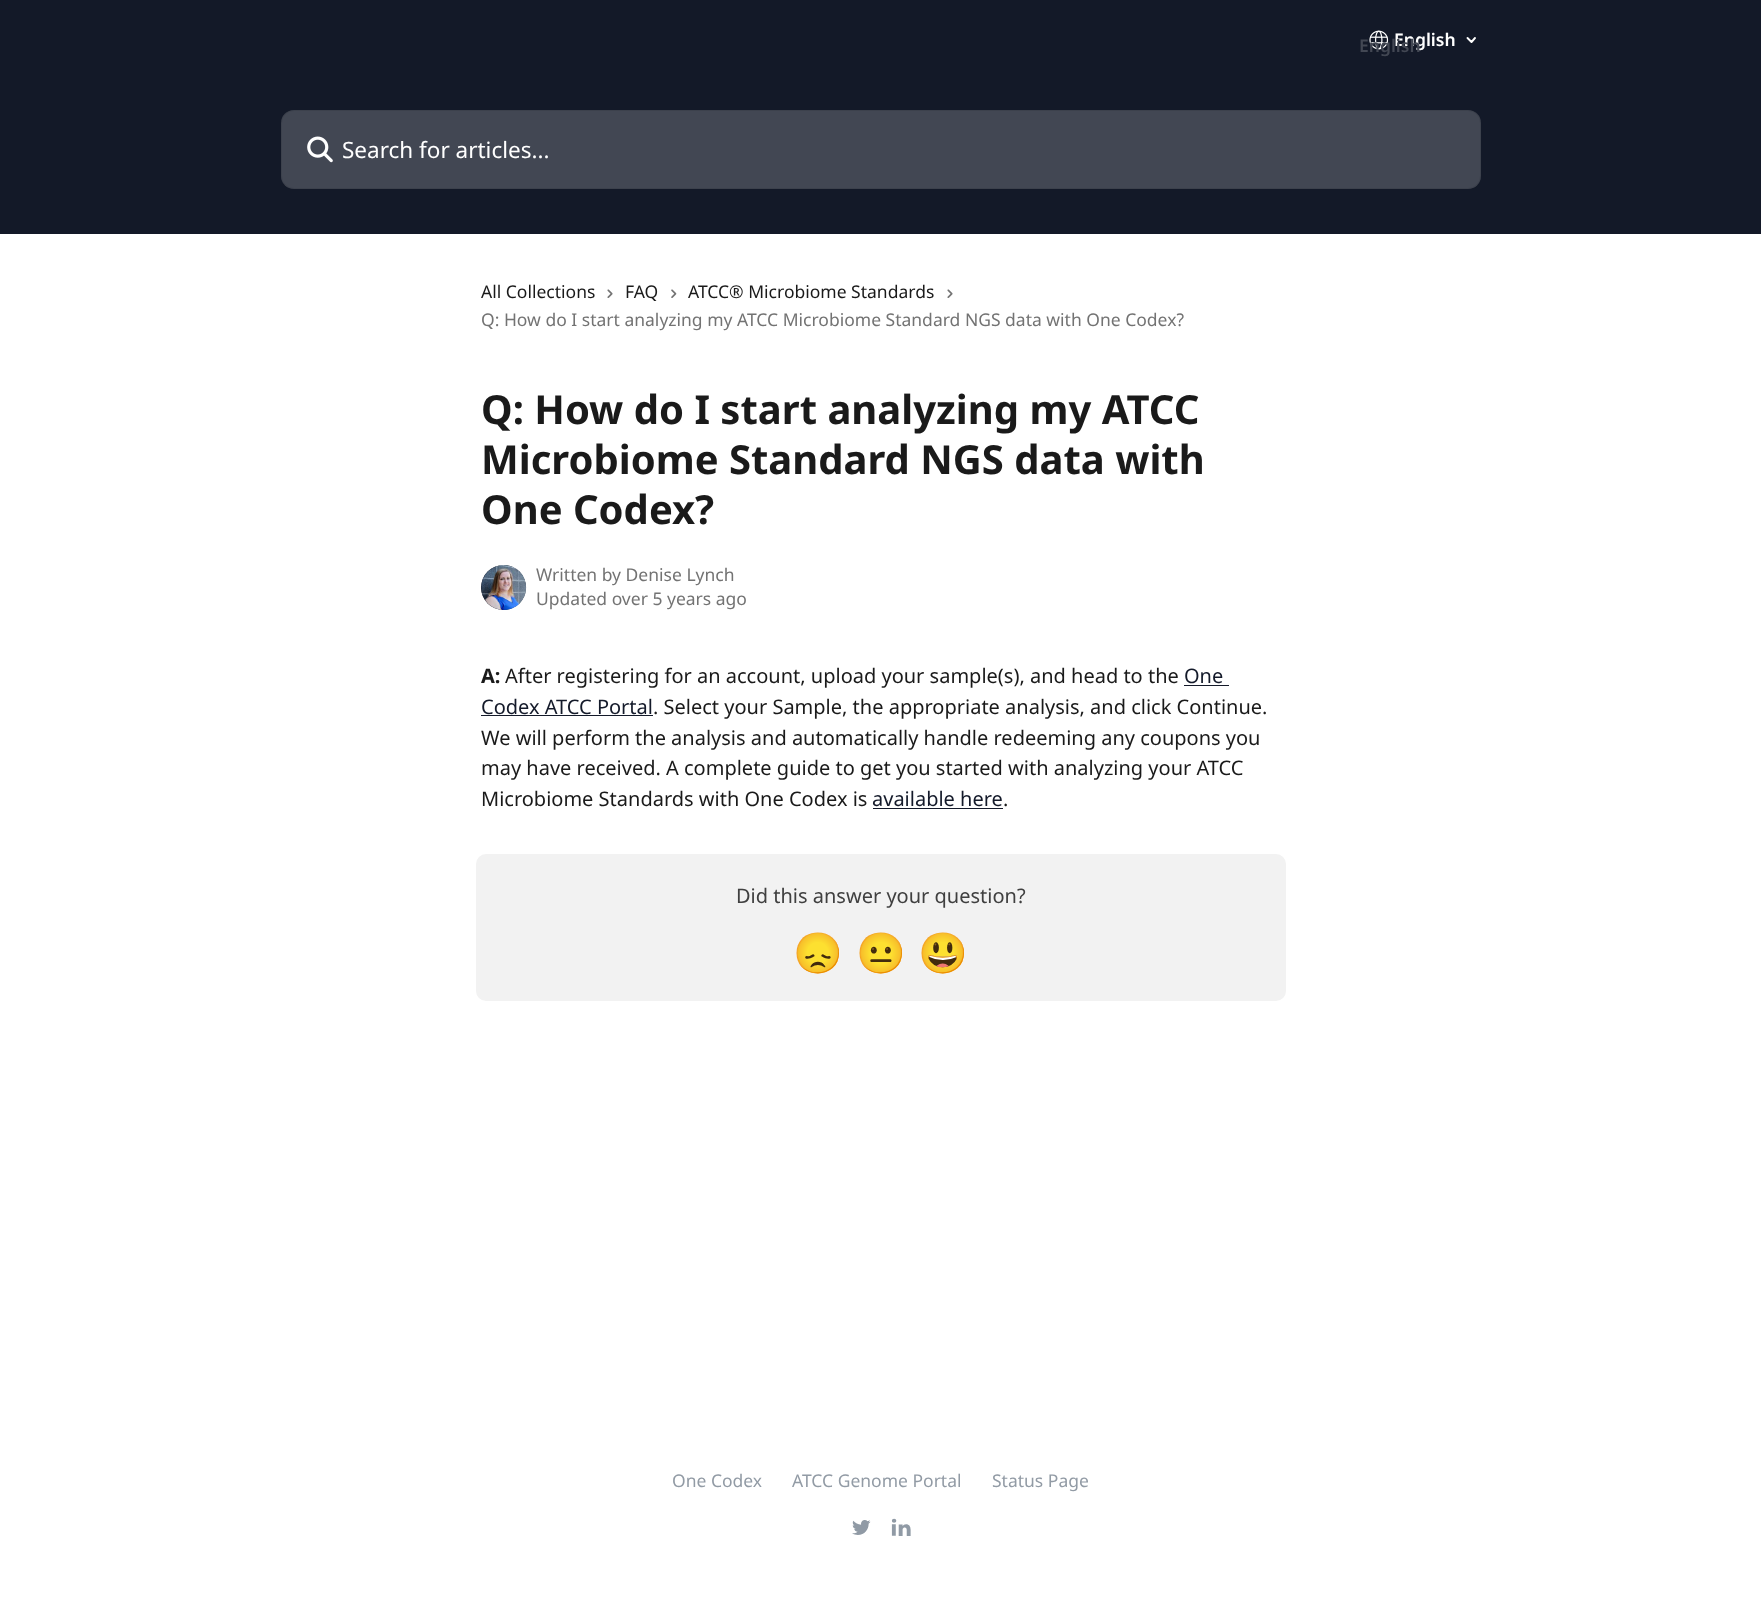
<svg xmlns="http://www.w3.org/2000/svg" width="1761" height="1602">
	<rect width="100%" height="100%" fill="#FFFFFF" />
	<rect x="0" y="0" width="1761" height="234" fill="#131928" />
	<image x="1369" y="30" width="20" height="20" href="assets/img1.png" />
	<text x="1394" y="46" font-family="Noto Sans" font-size="17.5" font-weight="600" fill="#FFFFFF">English</text>
	<text x="1359" y="52" font-family="Noto Sans" font-size="17.5" font-weight="600" fill="#424753">English</text>
	<path d="M1467.5 38L1471.5 42L1475 38" fill="none" stroke="#FFFFFF" stroke-width="1.9" stroke-linecap="round" stroke-linejoin="round" />
	<rect x="281" y="110" width="1200" height="79" rx="13" fill="#424753" />
	<rect x="281.5" y="110.5" width="1199" height="78" rx="12.5" fill="none" stroke="#000000" stroke-opacity="0.08" />
	<image x="307" y="136" width="26" height="27" href="assets/img2.png" />
	<text x="342" y="158" font-family="Noto Sans" font-size="22.5" fill="#FFFFFF">Search for articles...</text>
	<text x="481" y="298" font-family="Noto Sans" font-size="17.5" fill="#1A1A1A">All Collections</text>
	<image x="607" y="289" width="6" height="9" href="assets/img3.png" />
	<text x="625" y="298" font-family="Noto Sans" font-size="17.5" fill="#1A1A1A">FAQ</text>
	<image x="671" y="289" width="6" height="9" href="assets/img4.png" />
	<text x="688" y="298" font-family="Noto Sans" font-size="17.5" fill="#1A1A1A">ATCC® Microbiome Standards</text>
	<image x="947" y="289" width="6" height="9" href="assets/img3.png" />
	<text x="481" y="326" font-family="Noto Sans" font-size="17.5" fill="#737373">Q: How do I start analyzing my ATCC Microbiome Standard NGS data with One Codex?</text>
	<g font-family="Noto Sans" font-size="40" font-weight="700" fill="#1A1A1A">
		<text x="481" y="424">Q: How do I start analyzing my ATCC</text>
		<text x="481" y="474">Microbiome Standard NGS data with</text>
		<text x="481" y="524">One Codex?</text>
	</g>
	<circle cx="503.5" cy="587.5" r="22.5" fill="#141A2A" />
	<image x="481" y="565" width="46" height="45" href="assets/img5.png" />
	<g font-family="Noto Sans" font-size="17.5" fill="#737373">
		<text x="536" y="581">Written by Denise Lynch</text>
		<text x="536" y="605">Updated over 5 years ago</text>
	</g>
	<text x="481" y="683" font-family="Noto Sans" font-size="20" font-weight="700" fill="#1A1A1A">A:</text>
	<text x="505" y="683" font-family="Noto Sans" font-size="20" fill="#1A1A1A">After registering for an account, upload your sample(s), and head to the</text>
	<text x="1184" y="683" font-family="Noto Sans" font-size="20" fill="#141A2A">One</text>
	<rect x="1184" y="685" width="45" height="1" fill="#141A2A" />
	<text x="481" y="714" font-family="Noto Sans" font-size="20" fill="#141A2A">Codex ATCC Portal</text>
	<rect x="481" y="715" width="172" height="1" fill="#141A2A" />
	<g font-family="Noto Sans" font-size="20" fill="#1A1A1A">
		<text x="653" y="714">. Select your Sample, the appropriate analysis, and click Continue.</text>
		<text x="481" y="745">We will perform the analysis and automatically handle redeeming any coupons you</text>
		<text x="481" y="775">may have received. A complete guide to get you started with analyzing your ATCC</text>
		<text x="481" y="806">Microbiome Standards with One Codex is</text>
	</g>
	<text x="872" y="806" font-family="Noto Sans" font-size="20" fill="#141A2A">available here</text>
	<rect x="873" y="808" width="130" height="1" fill="#141A2A" />
	<text x="1003" y="806" font-family="Noto Sans" font-size="20" fill="#1A1A1A">.</text>
	<rect x="476" y="854" width="810" height="147" rx="10" fill="#F2F2F2" />
	<text x="736" y="903" font-family="Noto Sans" font-size="20" fill="#404040">Did this answer your question?</text>
	<g font-family="Noto Color Emoji" font-size="40" fill="#404040">
		<text x="793" y="967">😞</text>
		<text x="856" y="967">😐</text>
		<text x="918" y="967">😃</text>
	</g>
	<g font-family="Noto Sans" font-size="17.5" fill="#929BA5">
		<text x="672" y="1487">One Codex</text>
		<text x="792" y="1487">ATCC Genome Portal</text>
		<text x="992" y="1487">Status Page</text>
	</g>
	<image x="852" y="1520" width="19" height="15" href="assets/img6.png" />
	<image x="891" y="1518" width="20" height="18" href="assets/img7.png" />
</svg>
